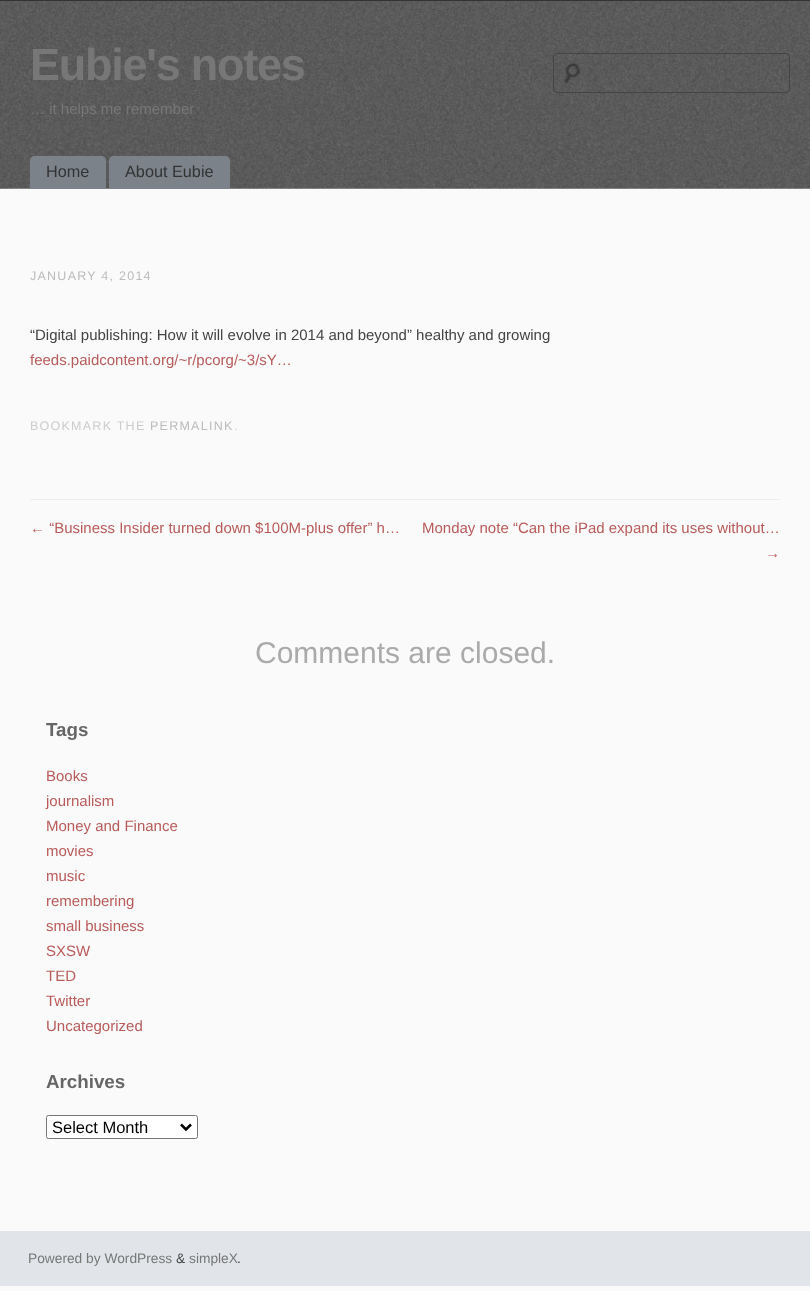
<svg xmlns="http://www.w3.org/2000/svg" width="810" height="1291">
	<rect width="100%" height="100%" fill="#FAFAFA" />
	<image x="0" y="1" width="810" height="188" href="assets/img1.png" />
	<rect x="0" y="0" width="810" height="1" fill="#333333" />
	<text x="30" y="80" font-family="Liberation Sans" font-size="45" font-weight="700" letter-spacing="-1.25" fill="#777777">Eubie's notes</text>
	<image x="564" y="63" width="16" height="21" href="assets/img2.png" />
	<rect x="553.5" y="53.5" width="236" height="39" rx="3.5" fill="none" stroke="#444444" />
	<text x="30" y="114" font-family="Liberation Sans" font-size="15" fill="#777777">… it helps me remember</text>
	<path d="M35 156H101C104 156 106 158 106 161V189H30V161C30 158 32 156 35 156Z" fill="#7B828A" />
	<text x="46" y="177" font-family="Liberation Sans" font-size="16.25" fill="#333333">Home</text>
	<path d="M114 156H225C228 156 230 158 230 161V189H109V161C109 158 111 156 114 156Z" fill="#7B828A" />
	<text x="125" y="177" font-family="Liberation Sans" font-size="16.25" fill="#333333">About Eubie</text>
	<rect x="30" y="499" width="750" height="1" fill="#EEEEEE" />
	<text x="30" y="280" font-family="Liberation Sans" font-size="12.5" letter-spacing="1.25" fill="#BBBBBB">JANUARY 4, 2014</text>
	<text x="30" y="340" font-family="Liberation Sans" font-size="15" fill="#444444">“Digital publishing: How it will evolve in 2014 and beyond” healthy and growing</text>
	<text x="30" y="365" font-family="Liberation Sans" font-size="15" fill="#B85B5A">feeds.paidcontent.org/~r/pcorg/~3/sY…</text>
	<text x="30" y="430" font-family="Liberation Sans" font-size="12.5" letter-spacing="1.25" fill="#CCCCCC">BOOKMARK THE</text>
	<text x="150" y="430" font-family="Liberation Sans" font-size="12.5" letter-spacing="1.25" fill="#BBBBBB">PERMALINK</text>
	<text x="234" y="430" font-family="Liberation Sans" font-size="12.5" letter-spacing="1.25" fill="#CCCCCC">.</text>
	<g font-family="Liberation Sans" font-size="15" fill="#B85B5A">
		<text x="30" y="533">← “Business Insider turned down $100M-plus offer” h…</text>
		<text x="422" y="533">Monday note “Can the iPad expand its uses without…</text>
		<text x="765" y="558">→</text>
	</g>
	<text x="255" y="663" font-family="Liberation Sans" font-size="30" fill="#AAAAAA">Comments are closed.</text>
	<text x="46" y="736" font-family="Liberation Sans" font-size="18.75" font-weight="700" fill="#666666">Tags</text>
	<g font-family="Liberation Sans" font-size="15" fill="#B85B5A">
		<text x="46" y="781">Books</text>
		<text x="46" y="806">journalism</text>
		<text x="46" y="831">Money and Finance</text>
		<text x="46" y="856">movies</text>
		<text x="46" y="881">music</text>
		<text x="46" y="906">remembering</text>
		<text x="46" y="931">small business</text>
		<text x="46" y="956">SXSW</text>
		<text x="46" y="981">TED</text>
		<text x="46" y="1006">Twitter</text>
		<text x="46" y="1031">Uncategorized</text>
	</g>
	<text x="46" y="1088" font-family="Liberation Sans" font-size="18.75" font-weight="700" fill="#666666">Archives</text>
	<rect x="46.5" y="1115.5" width="151" height="23" rx="2" fill="#FFFFFF" stroke="#767676" />
	<path d="M181 1124.5L186 1129.5L191 1124.5" fill="none" stroke="#000000" stroke-width="2.5" />
	<text x="52" y="1133" font-family="Liberation Sans" font-size="16.5" fill="#000000">Select Month</text>
	<rect x="0" y="1231" width="810" height="55" fill="#E1E5E9" />
	<text x="28" y="1263" font-family="Liberation Sans" font-size="13.75" fill="#777777">Powered by WordPress</text>
	<text x="176" y="1263" font-family="Liberation Sans" font-size="13.75" fill="#444444">&amp;</text>
	<text x="189" y="1263" font-family="Liberation Sans" font-size="13.75" fill="#777777">simpleX</text>
	<text x="237" y="1263" font-family="Liberation Sans" font-size="13.75" fill="#444444">.</text>
</svg>
